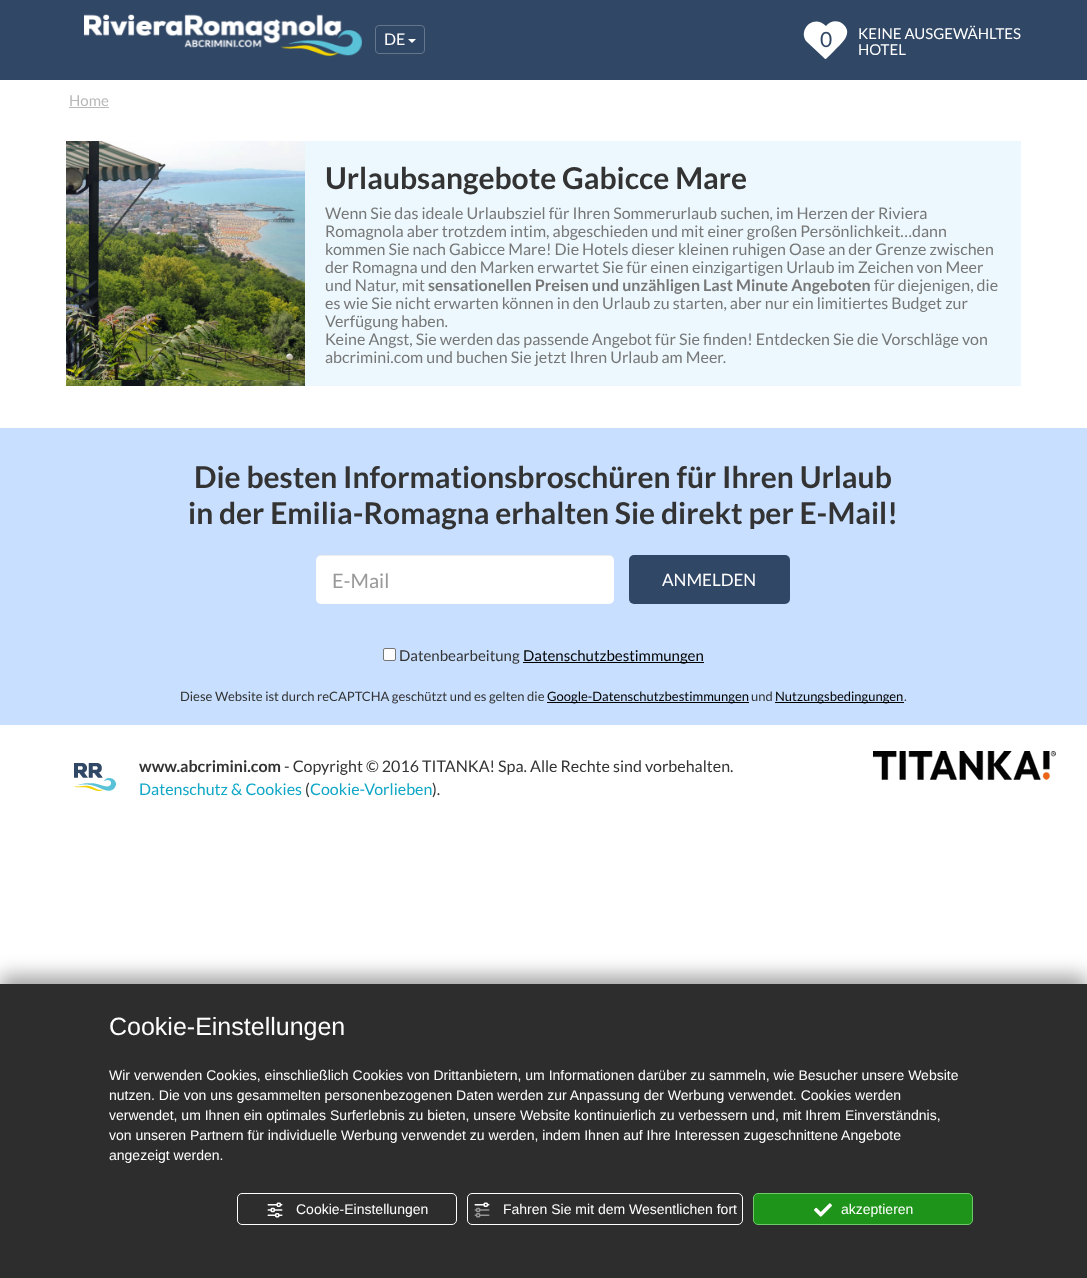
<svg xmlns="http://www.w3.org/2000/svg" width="1087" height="1278">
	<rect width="100%" height="100%" fill="#FFFFFF" />
	<rect x="0" y="0" width="1087" height="80" fill="#304766" />
	<image x="84" y="14" width="278" height="43" href="assets/img1.png" />
	<rect x="375.5" y="25.5" width="49" height="28" rx="3.5" fill="none" stroke="#64758C" />
	<text x="384" y="45" font-family="Lato" font-size="16" fill="#FFFFFF">DE</text>
	<path d="M408 39H416L412 43Z" fill="#FFFFFF" />
	<path d="M844 25C838 19 830 21 826 26C813 13 797 31 807 42L822 56C826 60 825 60 829 56L835 50C841 44 853 34 844 25Z" fill="#FFFFFF" />
	<text x="820" y="47" font-family="Lato" font-size="21" fill="#304766">0</text>
	<g font-family="Lato" font-size="15" fill="#FFFFFF">
		<text x="858" y="39">KEINE AUSGEWÄHLTES</text>
		<text x="858" y="55">HOTEL</text>
	</g>
	<text x="69" y="106" font-family="Lato" font-size="15" fill="#B8B8B8">Home</text>
	<rect x="69" y="107" width="40" height="1" fill="#B8B8B8" />
	<image x="66" y="380" width="239" height="6" href="assets/img2.png" />
	<image x="66" y="141" width="239" height="239" href="assets/img3.png" />
	<rect x="305" y="141" width="716" height="245" fill="#ECF8FD" />
	<text x="325" y="189" font-family="Lato" font-size="30" font-weight="700" fill="#333333">Urlaubsangebote Gabicce Mare</text>
	<g font-family="Lato" font-size="16" fill="#777777">
		<text x="325" y="219">Wenn Sie das ideale Urlaubsziel für Ihren Sommerurlaub suchen, im Herzen der Riviera</text>
		<text x="325" y="237">Romagnola aber trotzdem intim, abgeschieden und mit einer großen Persönlichkeit…dann</text>
		<text x="325" y="255">kommen Sie nach Gabicce Mare! Die Hotels dieser kleinen ruhigen Oase an der Grenze zwischen</text>
		<text x="325" y="273">der Romagna und den Marken erwartet Sie für einen einzigartigen Urlaub im Zeichen von Meer</text>
		<text x="325" y="291">und Natur, mit</text>
	</g>
	<text x="428" y="291" font-family="Lato" font-size="16" font-weight="700" fill="#777777">sensationellen Preisen und unzähligen Last Minute Angeboten</text>
	<g font-family="Lato" font-size="16" fill="#777777">
		<text x="874" y="291">für diejenigen, die</text>
		<text x="325" y="309">es wie Sie nicht erwarten können in den Urlaub zu starten, aber nur ein limitiertes Budget zur</text>
		<text x="325" y="327">Verfügung haben.</text>
		<text x="325" y="345">Keine Angst, Sie werden das passende Angebot für Sie finden! Entdecken Sie die Vorschläge von</text>
		<text x="325" y="363">abcrimini.com und buchen Sie jetzt Ihren Urlaub am Meer.</text>
	</g>
	<rect x="0" y="428" width="1087" height="297" fill="#C8DFFF" />
	<g font-family="Lato" font-size="30" font-weight="700" fill="#333333">
		<text x="194" y="488">Die besten Informationsbroschüren für Ihren Urlaub</text>
		<text x="188" y="524">in der Emilia-Romagna erhalten Sie direkt per E-Mail!</text>
	</g>
	<rect x="316" y="555" width="298" height="49" rx="5" fill="#FFFFFF" />
	<path d="M321 556H609C612 556 614 558 614 561V560C614 557 612 555 609 555H321C318 555 316 557 316 560V561C316 558 318 556 321 556Z" fill="#000000" fill-opacity="0.07" />
	<text x="332" y="588" font-family="Lato" font-size="20" fill="#999999">E-Mail</text>
	<rect x="629" y="555" width="161" height="49" rx="5" fill="#304766" />
	<text x="662" y="586" font-family="Lato" font-size="17" fill="#FFFFFF">ANMELDEN</text>
	<rect x="383.5" y="648.5" width="12" height="12" rx="1.5" fill="#FFFFFF" stroke="#767676" />
	<text x="399" y="661" font-family="Lato" font-size="15" fill="#333333">Datenbearbeitung</text>
	<rect x="523" y="662" width="181" height="1" fill="#000000" />
	<text x="523" y="661" font-family="Lato" font-size="15" fill="#000000">Datenschutzbestimmungen</text>
	<text x="180" y="701" font-family="Lato" font-size="13" fill="#333333">Diese Website ist durch reCAPTCHA geschützt und es gelten die</text>
	<rect x="547" y="702" width="202" height="1" fill="#000000" />
	<text x="547" y="701" font-family="Lato" font-size="13" fill="#000000">Google-Datenschutzbestimmungen</text>
	<text x="751" y="701" font-family="Lato" font-size="13" fill="#333333">und</text>
	<rect x="775" y="702" width="129" height="1" fill="#000000" />
	<text x="775" y="701" font-family="Lato" font-size="13" fill="#000000">Nutzungsbedingungen</text>
	<text x="904" y="701" font-family="Lato" font-size="13" fill="#333333">.</text>
	<image x="74" y="763" width="42" height="28" href="assets/img4.png" />
	<text x="139" y="772" font-family="Lato" font-size="16" font-weight="700" fill="#333333">www.abcrimini.com</text>
	<text x="284" y="772" font-family="Lato" font-size="16" fill="#333333">- Copyright © 2016 TITANKA! Spa. Alle Rechte sind vorbehalten.</text>
	<text x="139" y="795" font-family="Lato" font-size="16" fill="#10A7C7">Datenschutz &amp; Cookies</text>
	<text x="305" y="795" font-family="Lato" font-size="16" fill="#333333">(</text>
	<text x="310" y="795" font-family="Lato" font-size="16" fill="#10A7C7">Cookie-Vorlieben</text>
	<text x="432" y="795" font-family="Lato" font-size="16" fill="#333333">).</text>
	<image x="873" y="751" width="183" height="29" href="assets/img5.png" />
	<rect x="0" y="976" width="1087" height="294" fill="#000000" fill-opacity="0.38" filter="blur(10px)" />
	<rect x="0" y="984" width="1087" height="294" fill="#2D2D2D" />
	<text x="109" y="1035" font-family="Liberation Sans" font-size="25" fill="#FFFFFF">Cookie-Einstellungen</text>
	<g font-family="Liberation Sans" font-size="14" fill="#FFFFFF">
		<text x="109" y="1080">Wir verwenden Cookies, einschließlich Cookies von Drittanbietern, um Informationen darüber zu sammeln, wie Besucher unsere Website</text>
		<text x="109" y="1100">nutzen. Die von uns gesammelten personenbezogenen Daten werden zur Anpassung der Werbung verwendet. Cookies werden</text>
		<text x="109" y="1120">verwendet, um Ihnen ein optimales Surferlebnis zu bieten, unsere Website kontinuierlich zu verbessern und, mit Ihrem Einverständnis,</text>
		<text x="109" y="1140">von unseren Partnern für individuelle Werbung verwendet zu werden, indem Ihnen auf Ihre Interessen zugeschnittene Angebote</text>
		<text x="109" y="1160">angezeigt werden.</text>
	</g>
	<rect x="237.5" y="1193.5" width="219" height="31" rx="4.5" fill="none" stroke="#FFFFFF" />
	<image x="267" y="1202" width="16" height="16" href="assets/img6.png" />
	<text x="296" y="1214" font-family="Liberation Sans" font-size="14" fill="#FFFFFF">Cookie-Einstellungen</text>
	<rect x="467.5" y="1193.5" width="275" height="31" rx="4.5" fill="none" stroke="#FFFFFF" />
	<image x="474" y="1202" width="16" height="16" href="assets/img7.png" />
	<text x="503" y="1214" font-family="Liberation Sans" font-size="14" fill="#FFFFFF">Fahren Sie mit dem Wesentlichen fort</text>
	<rect x="753.5" y="1193.5" width="219" height="31" rx="4.5" fill="#1E941A" stroke="#6CCA69" />
	<image x="814" y="1203" width="18" height="14" href="assets/img8.png" />
	<text x="841" y="1214" font-family="Liberation Sans" font-size="14" fill="#FFFFFF">akzeptieren</text>
</svg>
